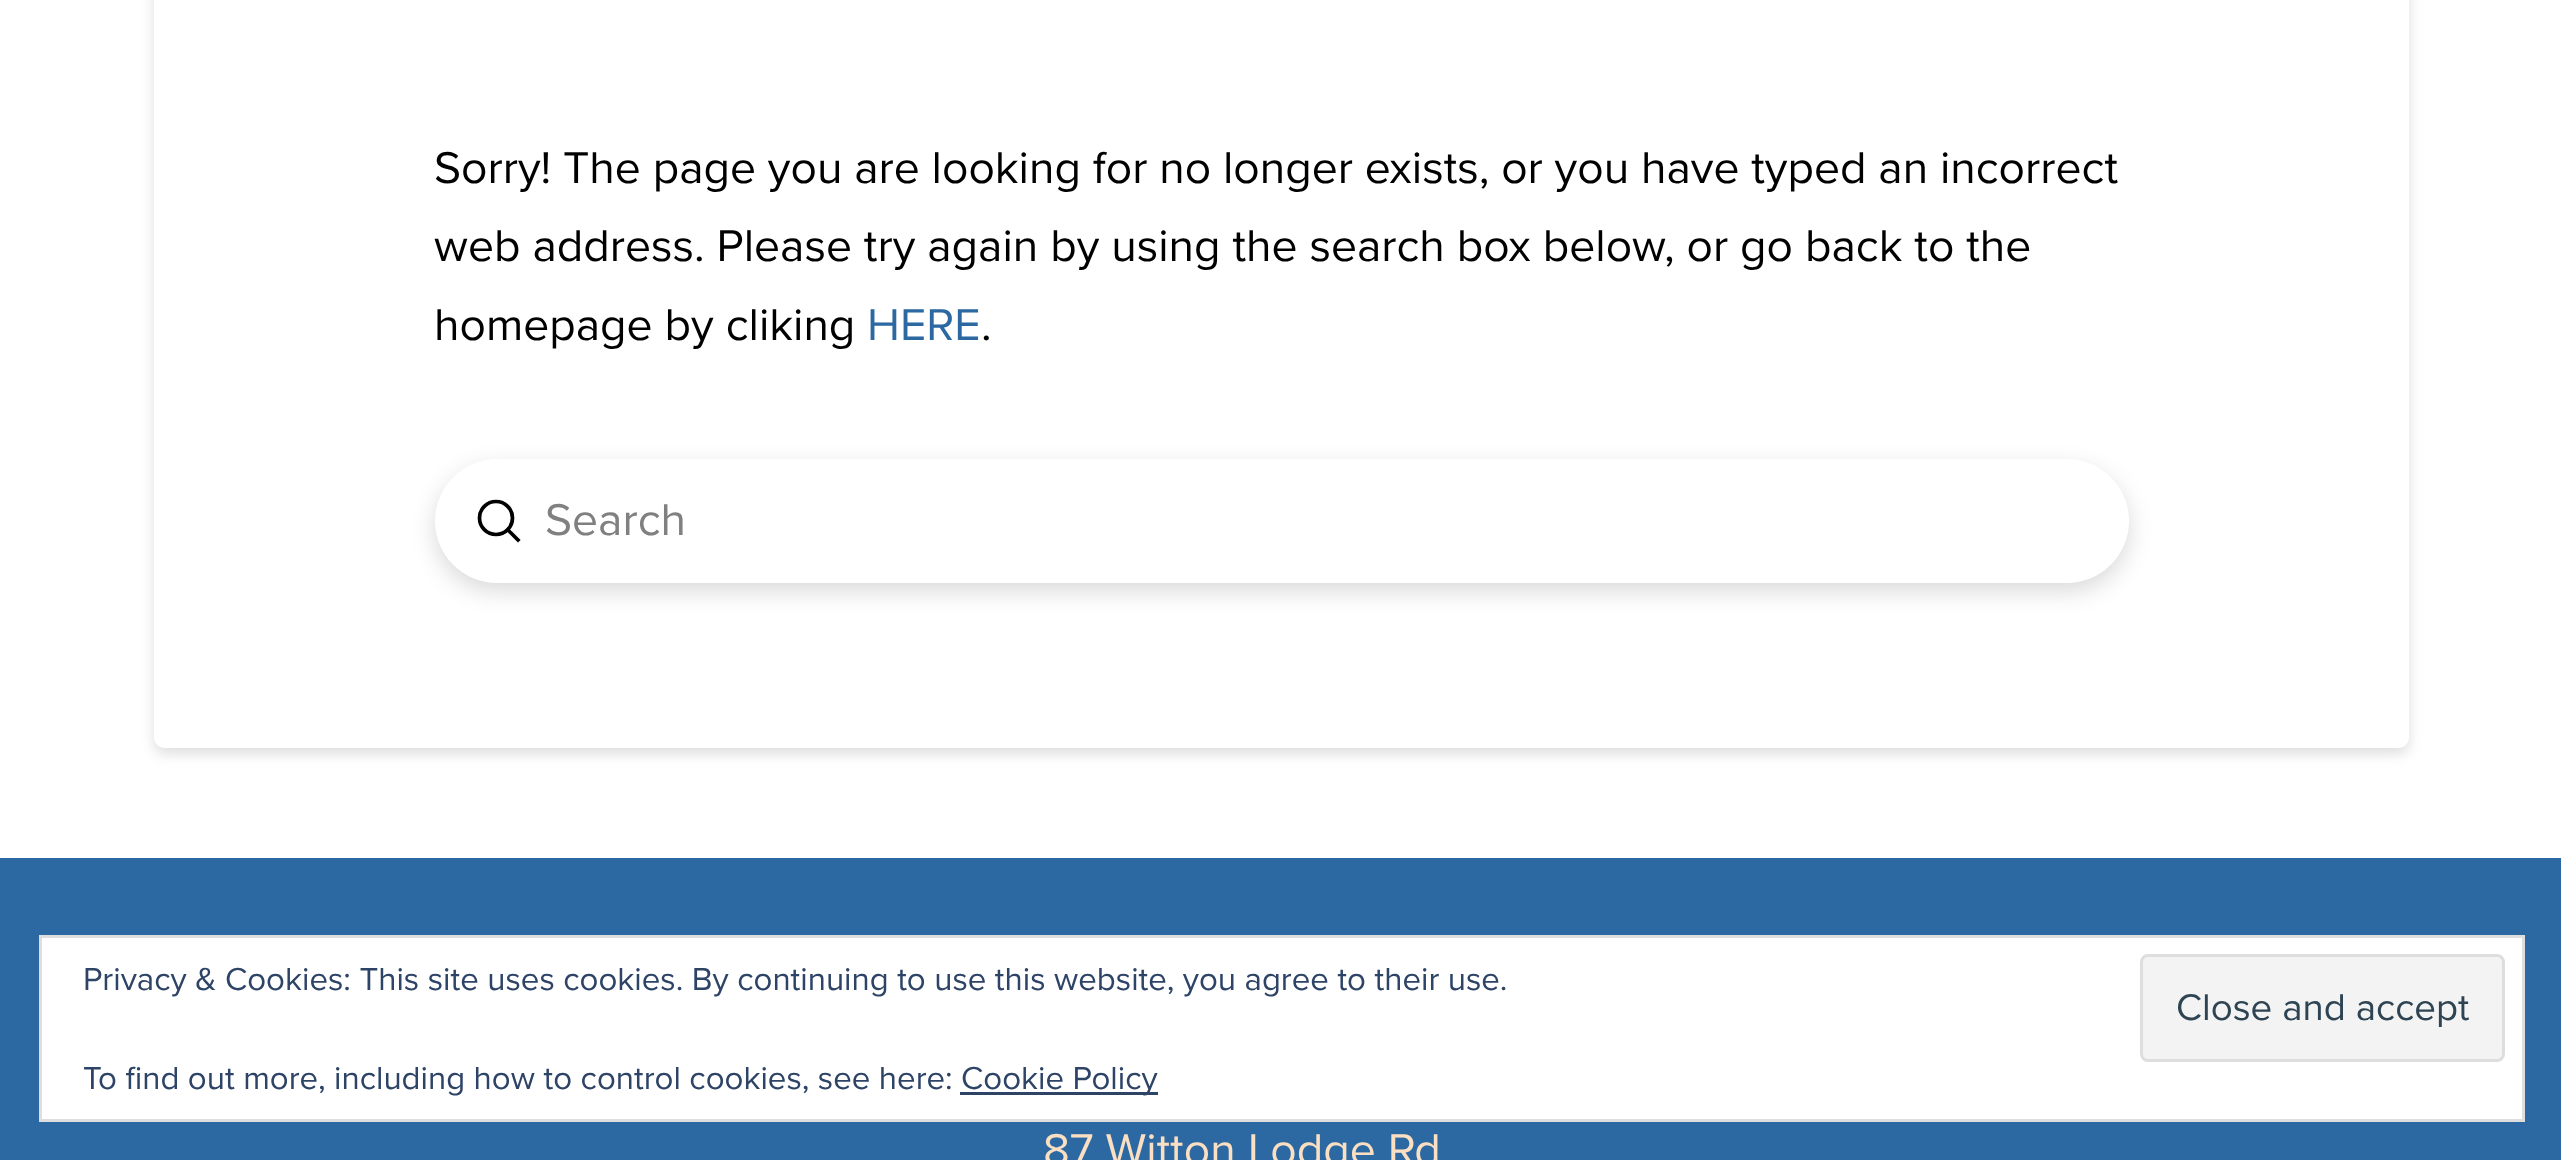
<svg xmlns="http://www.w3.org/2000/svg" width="2561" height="1160">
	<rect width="100%" height="100%" fill="#FFFFFF" />
	<rect x="154" y="-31" width="2255" height="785" rx="11" fill="#000000" fill-opacity="0.13" filter="blur(6.5px)" />
	<rect x="154" y="-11" width="2255" height="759" rx="11" fill="#FFFFFF" />
	<g font-family="Proxima Nova" font-size="46.2" fill="#000000">
		<text x="434" y="183" word-spacing="-0.1">Sorry! The page you are looking for no longer exists, or you have typed an incorrect</text>
		<text x="434" y="261">web address. Please try again by using the search box below, or go back to the</text>
		<text x="434" y="340">homepage by cliking</text>
	</g>
	<text x="867" y="340" font-family="Proxima Nova" font-size="46.2" fill="#2C69A2">HERE</text>
	<text x="981" y="340" font-family="Proxima Nova" font-size="46.2" fill="#000000">.</text>
	<rect x="435" y="468" width="1694" height="123" rx="61.5" fill="#000000" fill-opacity="0.15" filter="blur(11.5px)" />
	<rect x="435" y="459" width="1694" height="124" rx="62" fill="#FFFFFF" />
	<circle cx="496" cy="518" r="16.5" fill="none" stroke="#000000" stroke-width="3.7" />
	<path d="M518 540L508 530" fill="none" stroke="#000000" stroke-width="3.7" stroke-linecap="square" />
	<text x="545" y="535" font-family="Proxima Nova" font-size="46.2" fill="#808080">Search</text>
	<rect x="0" y="858" width="2561" height="302" fill="#2C69A2" />
	<text x="1043" y="1165" font-family="Proxima Nova" font-size="46.2" fill="#FBDFC2">87 Witton Lodge Rd</text>
	<rect x="40.5" y="936.5" width="2483" height="184" fill="#FFFFFF" stroke="#DEDEDE" stroke-width="3" />
	<text x="83" y="990" font-family="Proxima Nova" font-size="33" fill="#2E4467">Privacy &amp; Cookies: This site uses cookies. By continuing to use this website, you agree to their use.</text>
	<rect x="2141.5" y="955.5" width="362" height="105" rx="6.5" fill="#F3F3F3" stroke="#DEDEDE" stroke-width="3" />
	<text x="2176" y="1020" font-family="Proxima Nova" font-size="38.5" fill="#2E4453">Close and accept</text>
	<text x="83" y="1089" font-family="Proxima Nova" font-size="33" fill="#2E4467">To find out more, including how to control cookies, see here:</text>
	<rect x="960" y="1092" width="198" height="3" fill="#2E4467" />
	<text x="961" y="1089" font-family="Proxima Nova" font-size="33" fill="#2E4467">Cookie Policy</text>
</svg>
